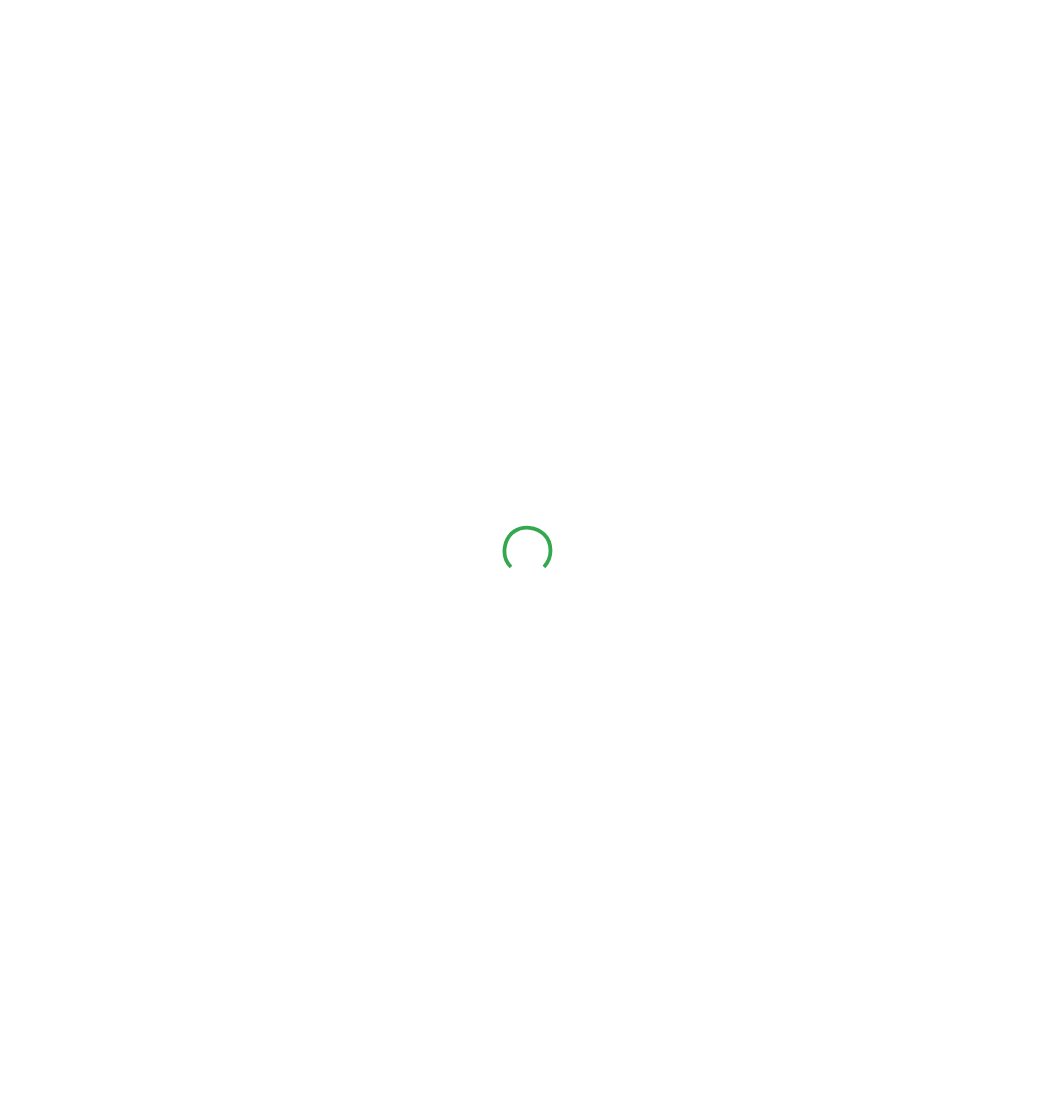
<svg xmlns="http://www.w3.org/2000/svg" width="1054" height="1108">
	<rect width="100%" height="100%" fill="#FFFFFF" />
	<path d="M511 567C505.5 561.5 503.5 553.5 505 546C510 519 550.5 523 550.5 550.5C550.5 556.5 548 562.5 544 567" fill="none" stroke="#34A84F" stroke-width="3.8" />
</svg>
